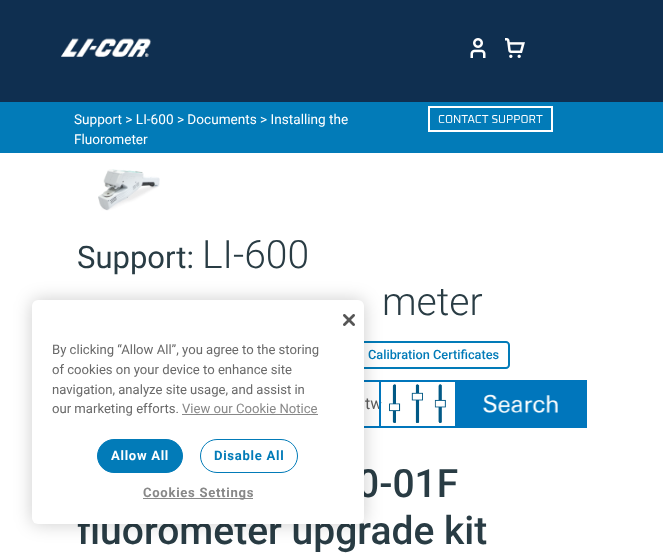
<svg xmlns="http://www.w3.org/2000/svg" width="663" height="556">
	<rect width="100%" height="100%" fill="#FFFFFF" />
	<rect x="0" y="0" width="663" height="102" fill="#0F2F50" />
	<image x="61" y="38" width="91" height="19" href="assets/img1.png" />
	<image x="470" y="38" width="16" height="20" href="assets/img2.png" />
	<image x="505" y="38" width="20" height="20" href="assets/img3.png" />
	<rect x="0" y="102" width="663" height="51" fill="#027BB8" />
	<g font-family="Roboto" font-size="13.6" fill="#FFFFFF">
		<text x="74" y="124">Support &gt; LI-600 &gt; Documents &gt; Installing the</text>
		<text x="74" y="144">Fluorometer</text>
	</g>
	<rect x="429" y="107" width="123" height="24" fill="none" stroke="#FFFFFF" stroke-width="2" />
	<text x="438" y="123" font-family="Oxanium" font-size="11.5" fill="#FFFFFF">CONTACT SUPPORT</text>
	<image x="98" y="169" width="62" height="42" href="assets/img4.png" />
	<text x="77" y="268" font-family="Roboto" font-size="31" fill="#293C44">Support:</text>
	<g font-family="Roboto" font-size="39" font-weight="300" fill="#293C44">
		<text x="202" y="268">LI-600</text>
		<text x="382" y="315">meter</text>
	</g>
	<path d="M359 342H506C507.5 342 509 343.5 509 345V365C509 366.5 507.5 368 506 368H359Z" fill="none" stroke="#027BB8" stroke-width="2" />
	<text x="368" y="359" font-family="Roboto" font-size="12.75" font-weight="500" fill="#027BB8">Calibration Certificates</text>
	<rect x="78" y="381" width="508" height="46" fill="none" stroke="#0076BC" stroke-width="2" />
	<text x="365" y="409" font-family="Roboto" font-size="16" fill="#5F5F5F">tw</text>
	<rect x="381" y="400" width="1" height="2" fill="#FFFFFF" />
	<image x="389" y="384" width="57" height="39" href="assets/img5.png" />
	<rect x="380" y="381" width="76" height="46" fill="none" stroke="#0076BC" stroke-width="2" />
	<image x="457" y="382" width="128" height="46" href="assets/img6.png" />
	<g font-family="Roboto" font-size="39" font-weight="500" fill="#293C44">
		<text x="357" y="497">0-01F</text>
		<text x="77" y="544">fluorometer upgrade kit</text>
	</g>
	<rect x="32" y="300" width="332" height="224" rx="6" fill="#000000" fill-opacity="0.2" filter="blur(9px)" />
	<rect x="32" y="300" width="332" height="224" rx="6" fill="#FFFFFF" />
	<image x="343" y="314" width="12" height="12" href="assets/img7.png" />
	<g font-family="Roboto" font-size="13.1" fill="#696969">
		<text x="52" y="354">By clicking “Allow All”, you agree to the storing</text>
		<text x="52" y="374">of cookies on your device to enhance site</text>
		<text x="52" y="394">navigation, analyze site usage, and assist in</text>
		<text x="52" y="413">our marketing efforts.</text>
	</g>
	<text x="182" y="413" font-family="Roboto" font-size="13.1" fill="#888888">View our Cookie Notice</text>
	<rect x="182" y="414" width="136" height="1" fill="#888888" />
	<rect x="97.5" y="439.5" width="85" height="33" rx="16.5" fill="#027BB8" stroke="#027BB8" />
	<text x="111" y="460" font-family="Roboto" font-size="13.1" font-weight="700" letter-spacing="0.7" fill="#FFFFFF">Allow All</text>
	<rect x="200.5" y="439.5" width="97" height="33" rx="16.5" fill="none" stroke="#027BB8" />
	<text x="214" y="460" font-family="Roboto" font-size="13.1" font-weight="700" letter-spacing="0.7" fill="#027BB8">Disable All</text>
	<rect x="143" y="498" width="110" height="1" fill="#888888" />
	<text x="143" y="497" font-family="Roboto" font-size="13.1" font-weight="700" letter-spacing="0.7" fill="#888888">Cookies Settings</text>
</svg>
